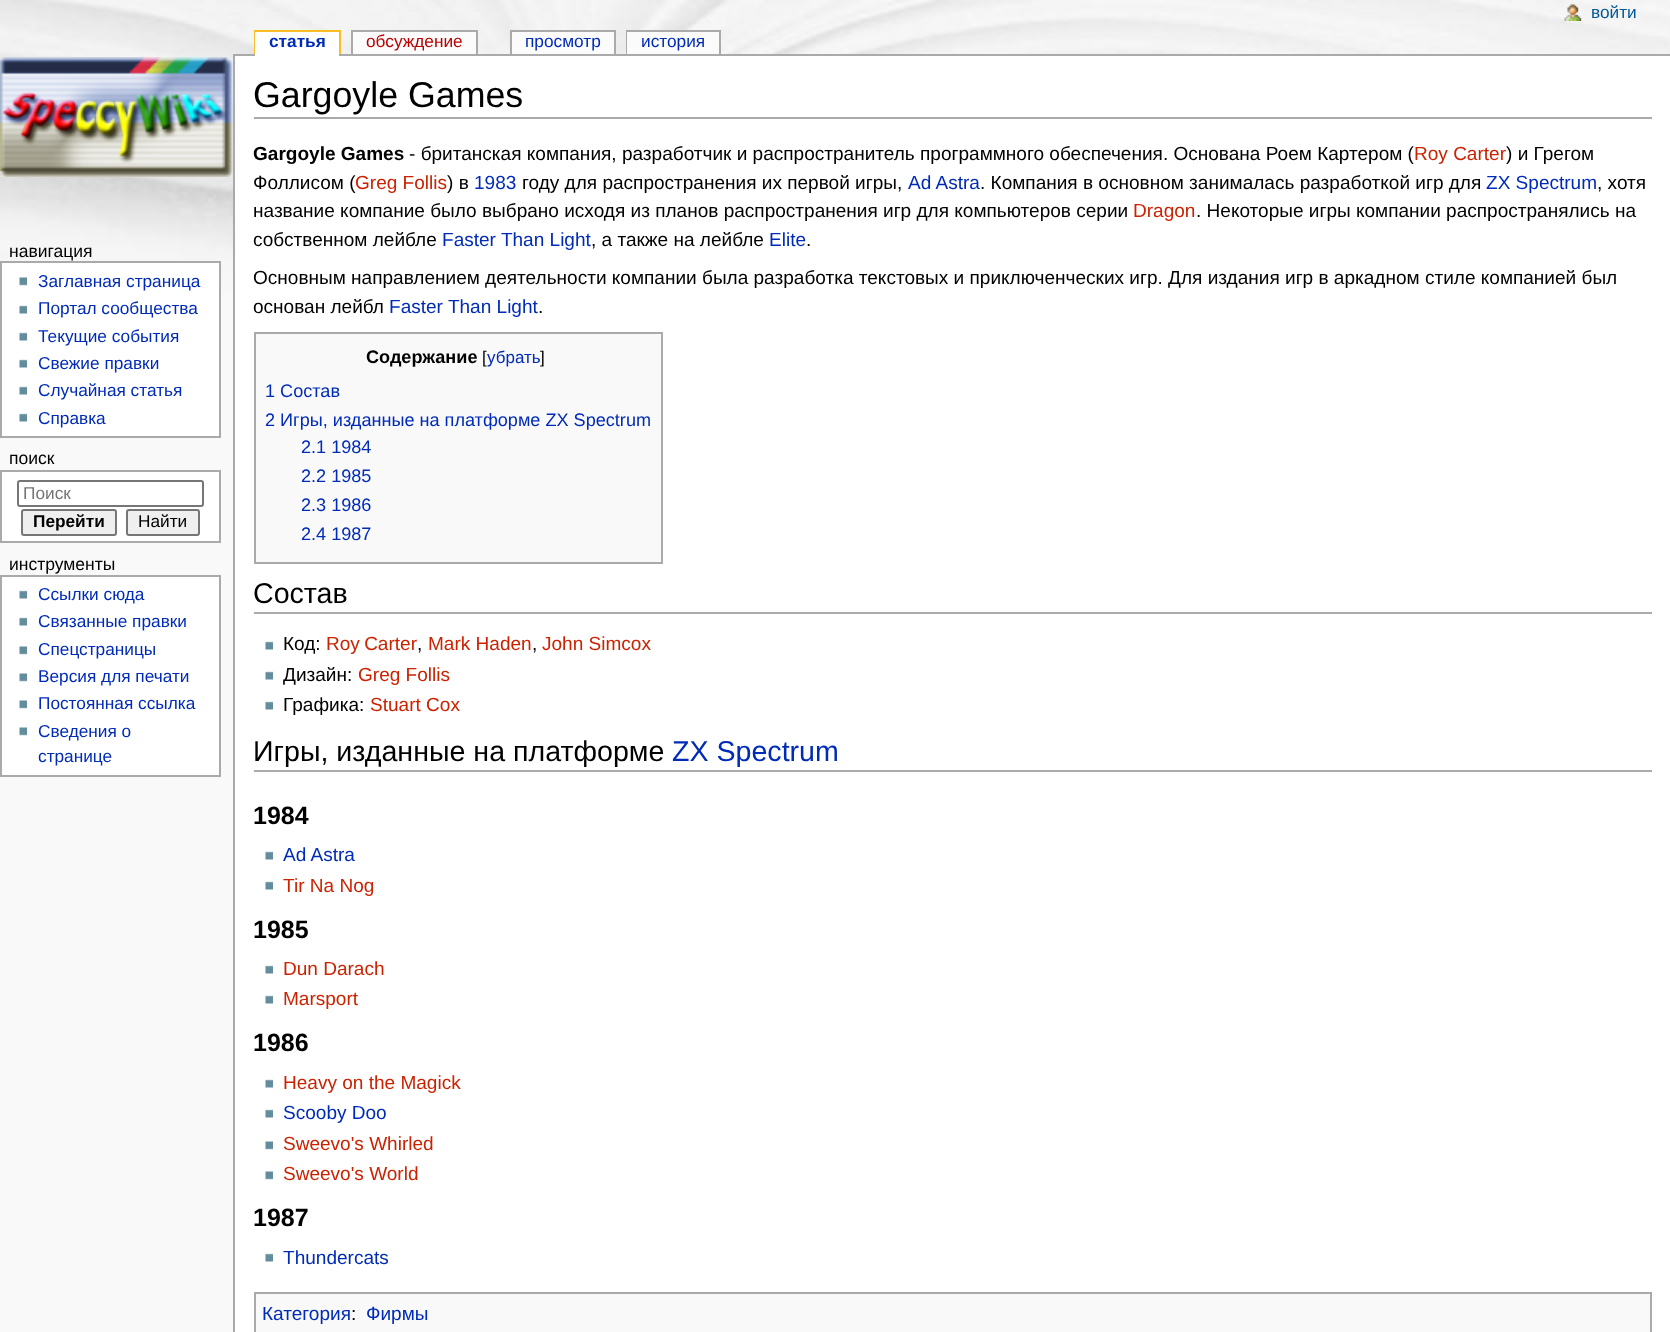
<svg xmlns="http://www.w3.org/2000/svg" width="1670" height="1332">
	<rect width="100%" height="100%" fill="#F9F9F9" />
	<image x="0" y="0" width="1670" height="292" href="assets/img1.png" />
	<image x="1564" y="4" width="18" height="17" href="assets/img2.png" />
	<text x="1591" y="18" font-family="Liberation Sans" font-size="17.25" fill="#005896">войти</text>
	<rect x="254" y="30" width="87" height="2" fill="#FABD23" />
	<rect x="254" y="30" width="2" height="24" fill="#FABD23" />
	<rect x="233" y="54" width="1437" height="2" fill="#AAAAAA" />
	<rect x="255" y="32" width="84" height="24" fill="#FFFFFF" />
	<text x="269" y="47" font-family="Liberation Sans" font-size="17.25" font-weight="700" fill="#002BB8">статья</text>
	<rect x="339" y="30" width="2" height="24" fill="#FABD23" />
	<rect x="353" y="32" width="123" height="22" fill="#FBFBFB" />
	<text x="366" y="47" font-family="Liberation Sans" font-size="17.25" fill="#BA0000">обсуждение</text>
	<rect x="351" y="30" width="126" height="2" fill="#AAAAAA" />
	<rect x="476" y="30" width="2" height="24" fill="#AAAAAA" />
	<rect x="351" y="30" width="2" height="24" fill="#AAAAAA" />
	<rect x="512" y="32" width="102" height="22" fill="#FBFBFB" />
	<text x="525" y="47" font-family="Liberation Sans" font-size="17.25" fill="#002BB8">просмотр</text>
	<rect x="510" y="30" width="105" height="2" fill="#AAAAAA" />
	<rect x="614" y="30" width="2" height="24" fill="#AAAAAA" />
	<rect x="510" y="30" width="2" height="24" fill="#AAAAAA" />
	<rect x="626" y="30" width="94" height="2" fill="#AAAAAA" />
	<rect x="626" y="30" width="2" height="24" fill="#AAAAAA" />
	<rect x="627" y="32" width="92" height="22" fill="#FBFBFB" />
	<text x="641" y="47" font-family="Liberation Sans" font-size="17.25" fill="#002BB8">история</text>
	<rect x="719" y="30" width="2" height="24" fill="#AAAAAA" />
	<image x="0" y="57" width="233" height="120" href="assets/img3.png" />
	<text x="9" y="257" font-family="Liberation Sans" font-size="17.5" fill="#000000">навигация</text>
	<rect x="1" y="262" width="219" height="175" fill="#FFFFFF" stroke="#AAAAAA" stroke-width="2" />
	<image x="19" y="277" width="8" height="9" href="assets/img4.png" />
	<text x="38" y="287" font-family="Liberation Sans" font-size="17.25" fill="#002BB8">Заглавная страница</text>
	<image x="19" y="305" width="8" height="9" href="assets/img5.png" />
	<text x="38" y="314" font-family="Liberation Sans" font-size="17.25" fill="#002BB8">Портал сообщества</text>
	<image x="19" y="332" width="8" height="9" href="assets/img5.png" />
	<text x="38" y="342" font-family="Liberation Sans" font-size="17.25" fill="#002BB8">Текущие события</text>
	<image x="19" y="359" width="8" height="9" href="assets/img5.png" />
	<text x="38" y="369" font-family="Liberation Sans" font-size="17.25" fill="#002BB8">Свежие правки</text>
	<image x="19" y="386" width="8" height="9" href="assets/img5.png" />
	<text x="38" y="396" font-family="Liberation Sans" font-size="17.25" fill="#002BB8">Случайная статья</text>
	<image x="19" y="413" width="8" height="9" href="assets/img5.png" />
	<text x="38" y="424" font-family="Liberation Sans" font-size="17.25" fill="#002BB8">Справка</text>
	<text x="9" y="464" font-family="Liberation Sans" font-size="17.5" fill="#000000">поиск</text>
	<rect x="1" y="471" width="219" height="71" fill="#FFFFFF" stroke="#AAAAAA" stroke-width="2" />
	<rect x="18" y="481" width="185" height="25" rx="2" fill="none" stroke="#767676" stroke-width="2" />
	<text x="23" y="499" font-family="Liberation Sans" font-size="17.25" fill="#757575">Поиск</text>
	<rect x="22" y="510" width="94" height="25" rx="2" fill="#EFEFEF" stroke="#767676" stroke-width="2" />
	<text x="33" y="527" font-family="Liberation Sans" font-size="17.25" font-weight="700" fill="#000000">Перейти</text>
	<rect x="127" y="510" width="72" height="25" rx="2" fill="#EFEFEF" stroke="#767676" stroke-width="2" />
	<text x="138" y="527" font-family="Liberation Sans" font-size="17.25" fill="#000000">Найти</text>
	<text x="9" y="570" font-family="Liberation Sans" font-size="17.5" fill="#000000">инструменты</text>
	<rect x="1" y="576" width="219" height="200" fill="#FFFFFF" stroke="#AAAAAA" stroke-width="2" />
	<image x="19" y="590" width="8" height="9" href="assets/img5.png" />
	<text x="38" y="600" font-family="Liberation Sans" font-size="17.25" fill="#002BB8">Ссылки сюда</text>
	<image x="19" y="617" width="8" height="9" href="assets/img5.png" />
	<text x="38" y="627" font-family="Liberation Sans" font-size="17.25" fill="#002BB8">Связанные правки</text>
	<image x="19" y="646" width="8" height="9" href="assets/img4.png" />
	<text x="38" y="655" font-family="Liberation Sans" font-size="17.25" fill="#002BB8">Спецстраницы</text>
	<image x="19" y="673" width="8" height="9" href="assets/img4.png" />
	<text x="38" y="682" font-family="Liberation Sans" font-size="17.25" fill="#002BB8">Версия для печати</text>
	<image x="19" y="700" width="8" height="9" href="assets/img4.png" />
	<text x="38" y="709" font-family="Liberation Sans" font-size="17.25" fill="#002BB8">Постоянная ссылка</text>
	<image x="19" y="727" width="8" height="9" href="assets/img4.png" />
	<g font-family="Liberation Sans" font-size="17.25" fill="#002BB8">
		<text x="38" y="737">Сведения о</text>
		<text x="38" y="762">странице</text>
	</g>
	<rect x="235" y="56" width="1435" height="1276" fill="#FFFFFF" />
	<rect x="233" y="54" width="2" height="1278" fill="#AAAAAA" />
	<rect x="254" y="117" width="1398" height="2" fill="#AAAAAA" />
	<text x="253" y="107" font-family="Liberation Sans" font-size="35.75" fill="#000000">Gargoyle Games</text>
	<text x="253" y="160" font-family="Liberation Sans" font-size="19.05" font-weight="700" fill="#000000">Gargoyle Games</text>
	<text x="409" y="160" font-family="Liberation Sans" font-size="19.05" fill="#000000">- британская компания, разработчик и распространитель программного обеспечения. Основана Роем Картером (</text>
	<text x="1414" y="160" font-family="Liberation Sans" font-size="19.05" fill="#CC2200">Roy Carter</text>
	<g font-family="Liberation Sans" font-size="19.05" fill="#000000">
		<text x="1506" y="160">) и Грегом</text>
		<text x="253" y="189">Фоллисом (</text>
	</g>
	<text x="355" y="189" font-family="Liberation Sans" font-size="19.05" fill="#CC2200">Greg Follis</text>
	<text x="447" y="189" font-family="Liberation Sans" font-size="19.05" fill="#000000">) в</text>
	<text x="474" y="189" font-family="Liberation Sans" font-size="19.05" fill="#002BB8">1983</text>
	<text x="522" y="189" font-family="Liberation Sans" font-size="19.05" fill="#000000">году для распространения их первой игры,</text>
	<text x="908" y="189" font-family="Liberation Sans" font-size="19.05" fill="#002BB8">Ad Astra</text>
	<text x="980" y="189" font-family="Liberation Sans" font-size="19.05" fill="#000000">. Компания в основном занималась разработкой игр для</text>
	<text x="1486" y="189" font-family="Liberation Sans" font-size="19.05" fill="#002BB8">ZX Spectrum</text>
	<g font-family="Liberation Sans" font-size="19.05" fill="#000000">
		<text x="1597" y="189">, хотя</text>
		<text x="253" y="217">название компание было выбрано исходя из планов распространения игр для компьютеров серии</text>
	</g>
	<text x="1133" y="217" font-family="Liberation Sans" font-size="19.05" fill="#CC2200">Dragon</text>
	<g font-family="Liberation Sans" font-size="19.05" fill="#000000">
		<text x="1196" y="217">. Некоторые игры компании распространялись на</text>
		<text x="253" y="246">собственном лейбле</text>
	</g>
	<text x="442" y="246" font-family="Liberation Sans" font-size="19.05" fill="#002BB8">Faster Than Light</text>
	<text x="591" y="246" font-family="Liberation Sans" font-size="19.05" fill="#000000">, а также на лейбле</text>
	<text x="769" y="246" font-family="Liberation Sans" font-size="19.05" fill="#002BB8">Elite</text>
	<g font-family="Liberation Sans" font-size="19.05" fill="#000000">
		<text x="806" y="246">.</text>
		<text x="253" y="284">Основным направлением деятельности компании была разработка текстовых и приключенческих игр. Для издания игр в аркадном стиле компанией был</text>
		<text x="253" y="313">основан лейбл</text>
	</g>
	<text x="389" y="313" font-family="Liberation Sans" font-size="19.05" fill="#002BB8">Faster Than Light</text>
	<text x="538" y="313" font-family="Liberation Sans" font-size="19.05" fill="#000000">.</text>
	<rect x="255" y="333" width="407" height="230" fill="#F9F9F9" stroke="#AAAAAA" stroke-width="2" />
	<text x="366" y="363" font-family="Liberation Sans" font-size="18.1" font-weight="700" fill="#000000">Содержание</text>
	<text x="482" y="363" font-family="Liberation Sans" font-size="17" fill="#000000">[</text>
	<text x="487" y="363" font-family="Liberation Sans" font-size="17" fill="#002BB8">убрать</text>
	<text x="540" y="363" font-family="Liberation Sans" font-size="17" fill="#000000">]</text>
	<g font-family="Liberation Sans" font-size="18.1" fill="#002BB8">
		<text x="265" y="397">1 Состав</text>
		<text x="265" y="426">2 Игры, изданные на платформе ZX Spectrum</text>
		<text x="301" y="453">2.1 1984</text>
		<text x="301" y="482">2.2 1985</text>
		<text x="301" y="511">2.3 1986</text>
		<text x="301" y="540">2.4 1987</text>
	</g>
	<rect x="254" y="612" width="1398" height="2" fill="#AAAAAA" />
	<text x="253" y="603" font-family="Liberation Sans" font-size="28.6" fill="#000000">Состав</text>
	<image x="265" y="641" width="8" height="9" href="assets/img5.png" />
	<text x="283" y="650" font-family="Liberation Sans" font-size="19.05" fill="#000000">Код:</text>
	<text x="326" y="650" word-spacing="-1" font-family="Liberation Sans" font-size="19.05" fill="#CC2200">Roy Carter</text>
	<text x="417" y="650" font-family="Liberation Sans" font-size="19.05" fill="#000000">,</text>
	<text x="428" y="650" font-family="Liberation Sans" font-size="19.05" fill="#CC2200">Mark Haden</text>
	<text x="532" y="650" font-family="Liberation Sans" font-size="19.05" fill="#000000">,</text>
	<text x="542" y="650" font-family="Liberation Sans" font-size="19.05" fill="#CC2200">John Simcox</text>
	<image x="265" y="671" width="8" height="9" href="assets/img5.png" />
	<text x="283" y="681" font-family="Liberation Sans" font-size="19.05" fill="#000000">Дизайн:</text>
	<text x="358" y="681" font-family="Liberation Sans" font-size="19.05" fill="#CC2200">Greg Follis</text>
	<image x="265" y="701" width="8" height="9" href="assets/img5.png" />
	<text x="283" y="711" font-family="Liberation Sans" font-size="19.05" fill="#000000">Графика:</text>
	<text x="370" y="711" font-family="Liberation Sans" font-size="19.05" fill="#CC2200">Stuart Cox</text>
	<rect x="254" y="770" width="1398" height="2" fill="#AAAAAA" />
	<text x="253" y="761" font-family="Liberation Sans" font-size="28.6" fill="#000000">Игры, изданные на платформе</text>
	<text x="672" y="761" font-family="Liberation Sans" font-size="28.6" fill="#002BB8">ZX Spectrum</text>
	<text x="253" y="824" font-family="Liberation Sans" font-size="25" font-weight="700" fill="#000000">1984</text>
	<image x="265" y="851" width="8" height="9" href="assets/img5.png" />
	<text x="283" y="861" font-family="Liberation Sans" font-size="19.05" fill="#002BB8">Ad Astra</text>
	<image x="265" y="881" width="8" height="9" href="assets/img5.png" />
	<text x="283" y="892" font-family="Liberation Sans" font-size="19.05" fill="#CC2200">Tir Na Nog</text>
	<text x="253" y="938" font-family="Liberation Sans" font-size="25" font-weight="700" fill="#000000">1985</text>
	<image x="265" y="965" width="8" height="9" href="assets/img5.png" />
	<text x="283" y="975" font-family="Liberation Sans" font-size="19.05" fill="#CC2200">Dun Darach</text>
	<image x="265" y="995" width="8" height="9" href="assets/img5.png" />
	<text x="283" y="1005" font-family="Liberation Sans" font-size="19.05" fill="#CC2200">Marsport</text>
	<text x="253" y="1051" font-family="Liberation Sans" font-size="25" font-weight="700" fill="#000000">1986</text>
	<image x="265" y="1079" width="8" height="9" href="assets/img5.png" />
	<text x="283" y="1089" font-family="Liberation Sans" font-size="19.05" fill="#CC2200">Heavy on the Magick</text>
	<image x="265" y="1109" width="8" height="9" href="assets/img5.png" />
	<text x="283" y="1119" font-family="Liberation Sans" font-size="19.05" fill="#002BB8">Scooby Doo</text>
	<image x="265" y="1141" width="8" height="9" href="assets/img4.png" />
	<text x="283" y="1150" font-family="Liberation Sans" font-size="19.05" fill="#CC2200">Sweevo's Whirled</text>
	<image x="265" y="1171" width="8" height="9" href="assets/img4.png" />
	<text x="283" y="1180" font-family="Liberation Sans" font-size="19.05" fill="#CC2200">Sweevo's World</text>
	<text x="253" y="1226" font-family="Liberation Sans" font-size="25" font-weight="700" fill="#000000">1987</text>
	<image x="265" y="1253" width="8" height="9" href="assets/img5.png" />
	<text x="283" y="1264" font-family="Liberation Sans" font-size="19.05" fill="#002BB8">Thundercats</text>
	<rect x="255" y="1293" width="1396" height="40" fill="#F9F9F9" stroke="#AAAAAA" stroke-width="2" />
	<text x="262" y="1320" font-family="Liberation Sans" font-size="19.05" fill="#002BB8">Категория</text>
	<text x="351" y="1320" font-family="Liberation Sans" font-size="19.05" fill="#000000">:</text>
	<text x="366" y="1320" font-family="Liberation Sans" font-size="19.05" fill="#002BB8">Фирмы</text>
</svg>
